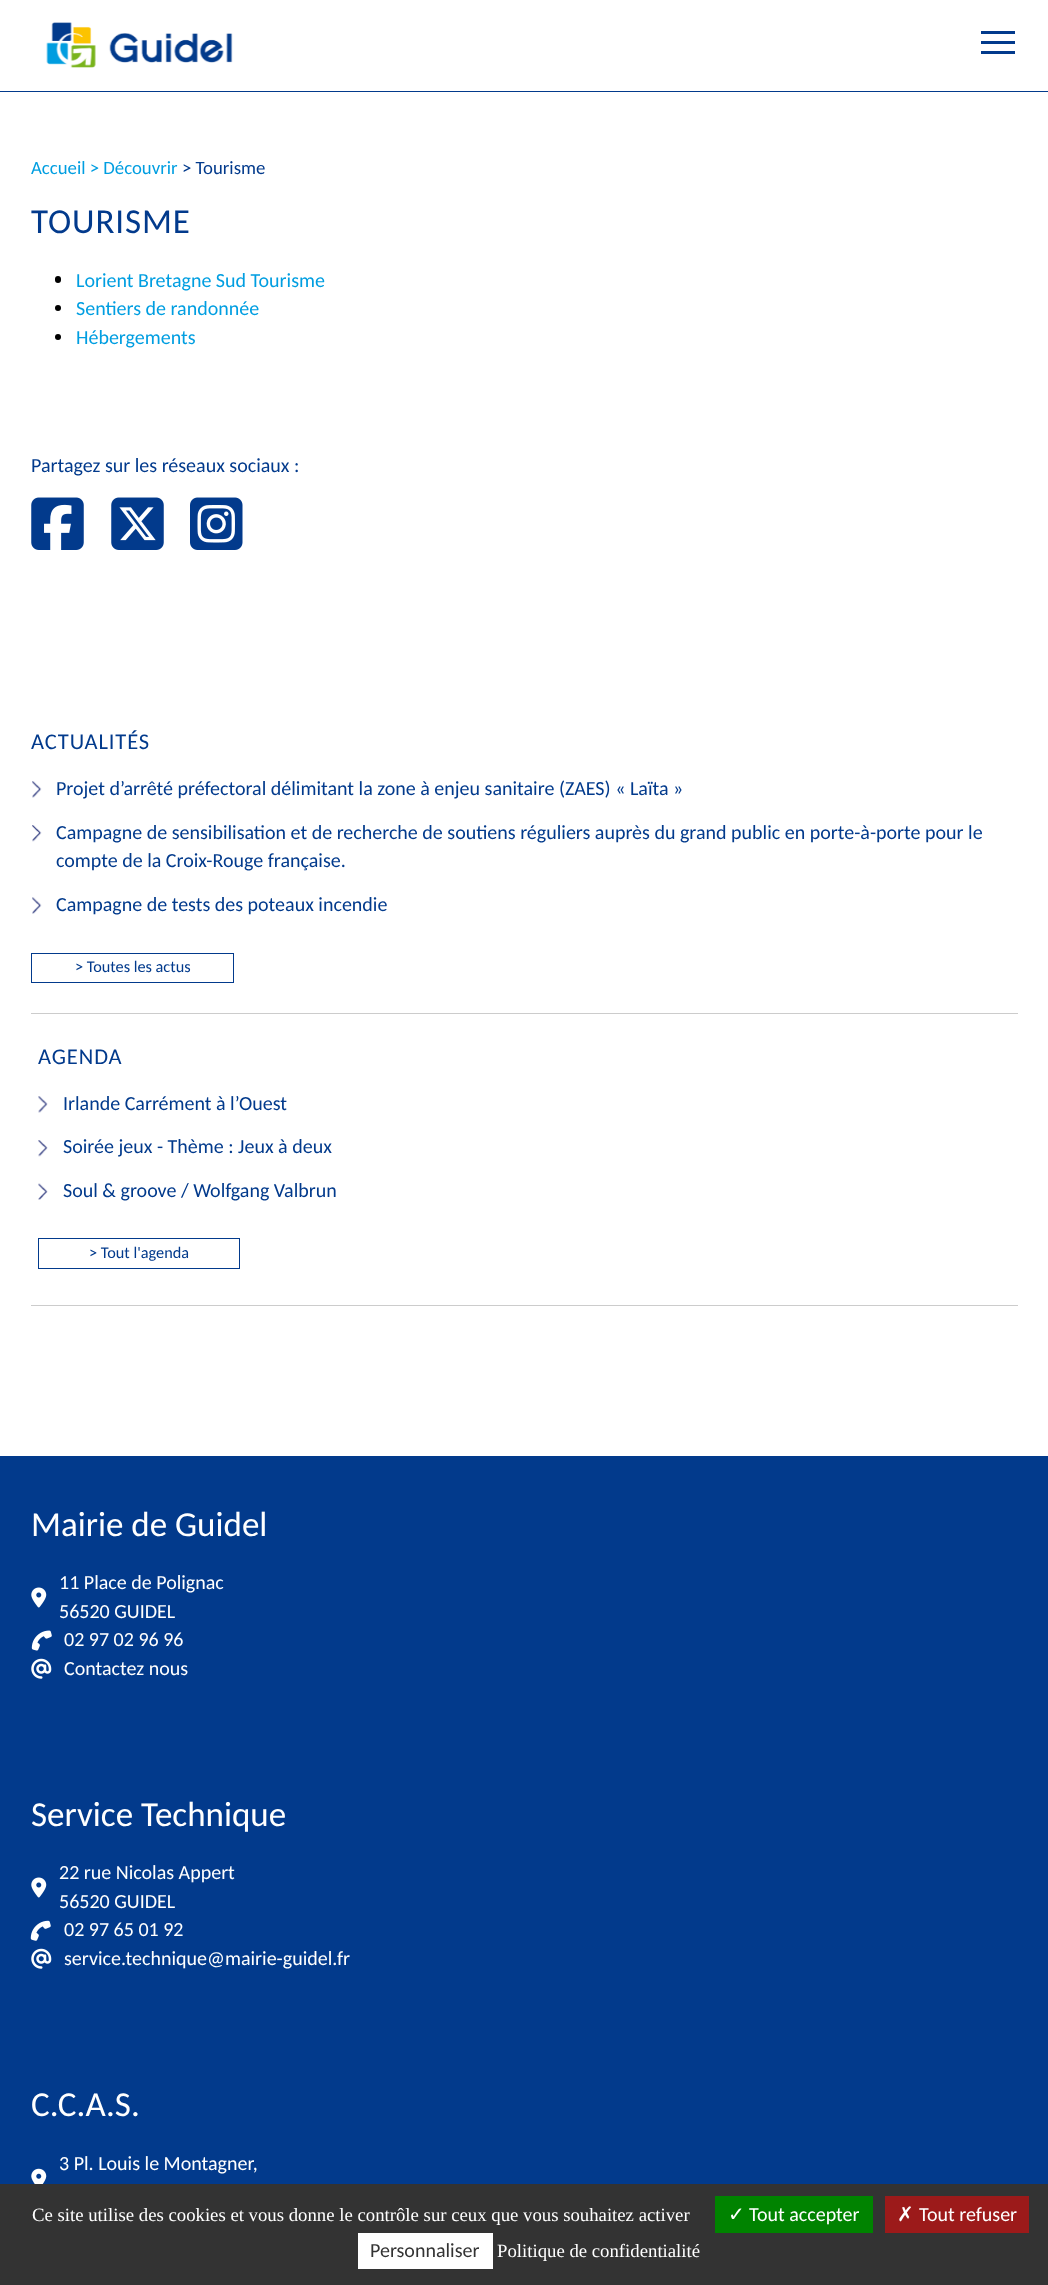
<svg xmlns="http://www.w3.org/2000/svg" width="1048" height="2285">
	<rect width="100%" height="100%" fill="#FFFFFF" />
	<rect x="0" y="91" width="1048" height="1" fill="#023A8C" />
	<image x="46" y="22" width="187" height="46" href="assets/img1.png" />
	<rect x="981" y="31" width="34" height="3" fill="#023A8C" />
	<rect x="981" y="41" width="34" height="3" fill="#023A8C" />
	<rect x="981" y="51" width="34" height="3" fill="#023A8C" />
	<text x="31" y="174" font-family="Carlito" font-size="18.75" fill="#009EE1">Accueil &gt; Découvrir</text>
	<text x="182" y="174" font-family="Carlito" font-size="18.75" fill="#023A8C">&gt; Tourisme</text>
	<text x="31" y="233" font-family="Carlito" font-size="35" letter-spacing="0.9" fill="#023A8C">TOURISME</text>
	<rect x="55" y="276" width="6" height="7" rx="3" fill="#000000" />
	<text x="76" y="287" font-family="Carlito" font-size="20" fill="#009EE1">Lorient Bretagne Sud Tourisme</text>
	<circle cx="58" cy="308" r="3" fill="#000000" />
	<text x="76" y="315" font-family="Carlito" font-size="20" fill="#009EE1">Sentiers de randonnée</text>
	<circle cx="58" cy="337" r="3" fill="#000000" />
	<text x="76" y="344" font-family="Carlito" font-size="20" fill="#009EE1">Hébergements</text>
	<text x="31" y="472" font-family="Carlito" font-size="20" fill="#023A8C">Partagez sur les réseaux sociaux :</text>
	<image x="31" y="497" width="53" height="53" href="assets/img2.png" />
	<image x="111" y="497" width="53" height="53" href="assets/img3.png" />
	<image x="190" y="497" width="53" height="53" href="assets/img4.png" />
	<text x="31" y="749" font-family="Carlito" font-size="22.5" letter-spacing="0.9" fill="#023A8C">ACTUALITÉS</text>
	<image x="32" y="781" width="10" height="17" href="assets/img5.png" />
	<text x="56" y="795" font-family="Carlito" font-size="20" fill="#023A8C">Projet d’arrêté préfectoral délimitant la zone à enjeu sanitaire (ZAES) « Laïta »</text>
	<image x="32" y="825" width="10" height="17" href="assets/img6.png" />
	<g font-family="Carlito" font-size="20" fill="#023A8C">
		<text x="56" y="839">Campagne de sensibilisation et de recherche de soutiens réguliers auprès du grand public en porte-à-porte pour le</text>
		<text x="56" y="867">compte de la Croix-Rouge française.</text>
	</g>
	<image x="32" y="897" width="10" height="17" href="assets/img7.png" />
	<text x="56" y="911" font-family="Carlito" font-size="20" fill="#023A8C">Campagne de tests des poteaux incendie</text>
	<rect x="31.5" y="953.5" width="202" height="29" fill="none" stroke="#023A8C" />
	<text x="75" y="972" font-family="Carlito" font-size="16.25" fill="#023A8C">&gt; Toutes les actus</text>
	<rect x="31" y="1013" width="987" height="1" fill="#CCCCCC" />
	<rect x="31" y="1305" width="987" height="1" fill="#CCCCCC" />
	<text x="38" y="1064" font-family="Carlito" font-size="22.5" letter-spacing="0.9" fill="#023A8C">AGENDA</text>
	<image x="38" y="1096" width="10" height="17" href="assets/img8.png" />
	<text x="63" y="1110" font-family="Carlito" font-size="20" fill="#023A8C">Irlande Carrément à l’Ouest</text>
	<image x="38" y="1140" width="10" height="17" href="assets/img9.png" />
	<text x="63" y="1153" font-family="Carlito" font-size="20" fill="#023A8C">Soirée jeux - Thème : Jeux à deux</text>
	<image x="38" y="1183" width="10" height="17" href="assets/img10.png" />
	<text x="63" y="1197" font-family="Carlito" font-size="20" fill="#023A8C">Soul &amp; groove / Wolfgang Valbrun</text>
	<rect x="38.5" y="1238.5" width="201" height="30" fill="none" stroke="#023A8C" />
	<text x="89" y="1258" font-family="Carlito" font-size="16.25" fill="#023A8C">&gt; Tout l'agenda</text>
	<rect x="0" y="1456" width="1048" height="728" fill="#023A8C" />
	<text x="31" y="1536" font-family="Carlito" font-size="35" fill="#FFFFFF">Mairie de Guidel</text>
	<text x="59" y="1589" font-family="Carlito" font-size="20" fill="#FFFFFF">11 Place de Polignac</text>
	<image x="31" y="1587" width="16" height="21" href="assets/img11.png" />
	<text x="59" y="1618" font-family="Carlito" font-size="20" fill="#FFFFFF">56520 GUIDEL</text>
	<image x="31" y="1630" width="21" height="21" href="assets/img12.png" />
	<text x="64" y="1646" font-family="Carlito" font-size="20" fill="#FFFFFF">02 97 02 96 96</text>
	<image x="31" y="1658" width="21" height="21" href="assets/img13.png" />
	<text x="64" y="1675" font-family="Carlito" font-size="20" fill="#FFFFFF">Contactez nous</text>
	<text x="31" y="1826" font-family="Carlito" font-size="35" fill="#FFFFFF">Service Technique</text>
	<text x="59" y="1879" font-family="Carlito" font-size="20" fill="#FFFFFF">22 rue Nicolas Appert</text>
	<image x="31" y="1877" width="16" height="21" href="assets/img11.png" />
	<text x="59" y="1908" font-family="Carlito" font-size="20" fill="#FFFFFF">56520 GUIDEL</text>
	<image x="30" y="1920" width="21" height="21" href="assets/img14.png" />
	<text x="64" y="1936" font-family="Carlito" font-size="20" fill="#FFFFFF">02 97 65 01 92</text>
	<image x="31" y="1948" width="21" height="21" href="assets/img13.png" />
	<text x="64" y="1965" font-family="Carlito" font-size="20" fill="#FFFFFF">service.technique@mairie-guidel.fr</text>
	<text x="31" y="2116" font-family="Carlito" font-size="35" fill="#FFFFFF">C.C.A.S.</text>
	<text x="59" y="2170" font-family="Carlito" font-size="20" fill="#FFFFFF">3 Pl. Louis le Montagner,</text>
	<image x="31" y="2168" width="16" height="16" href="assets/img15.png" />
	<rect x="0" y="2184" width="1048" height="101" fill="#333333" />
	<text x="32" y="2221" font-family="Liberation Serif" font-size="18.75" fill="#FFFFFF">Ce site utilise des cookies et vous donne le contrôle sur ceux que vous souhaitez activer</text>
	<rect x="715" y="2196" width="158" height="37" fill="#008300" />
	<text x="728" y="2221" font-family="DejaVu Sans" font-size="20" fill="#FFFFFF">✓</text>
	<text x="749" y="2221" font-family="Carlito" font-size="20" fill="#FFFFFF">Tout accepter</text>
	<rect x="885" y="2196" width="144" height="37" fill="#9C1A1A" />
	<text x="897" y="2221" font-family="DejaVu Sans" font-size="20" fill="#FFFFFF">✗</text>
	<text x="919" y="2221" font-family="Carlito" font-size="20" fill="#FFFFFF">Tout refuser</text>
	<rect x="358" y="2233" width="135" height="36" fill="#FFFFFF" />
	<text x="370" y="2257" font-family="Carlito" font-size="20" fill="#333333">Personnaliser</text>
	<text x="497" y="2257" font-family="Liberation Serif" font-size="18.75" fill="#FFFFFF">Politique de confidentialité</text>
</svg>
